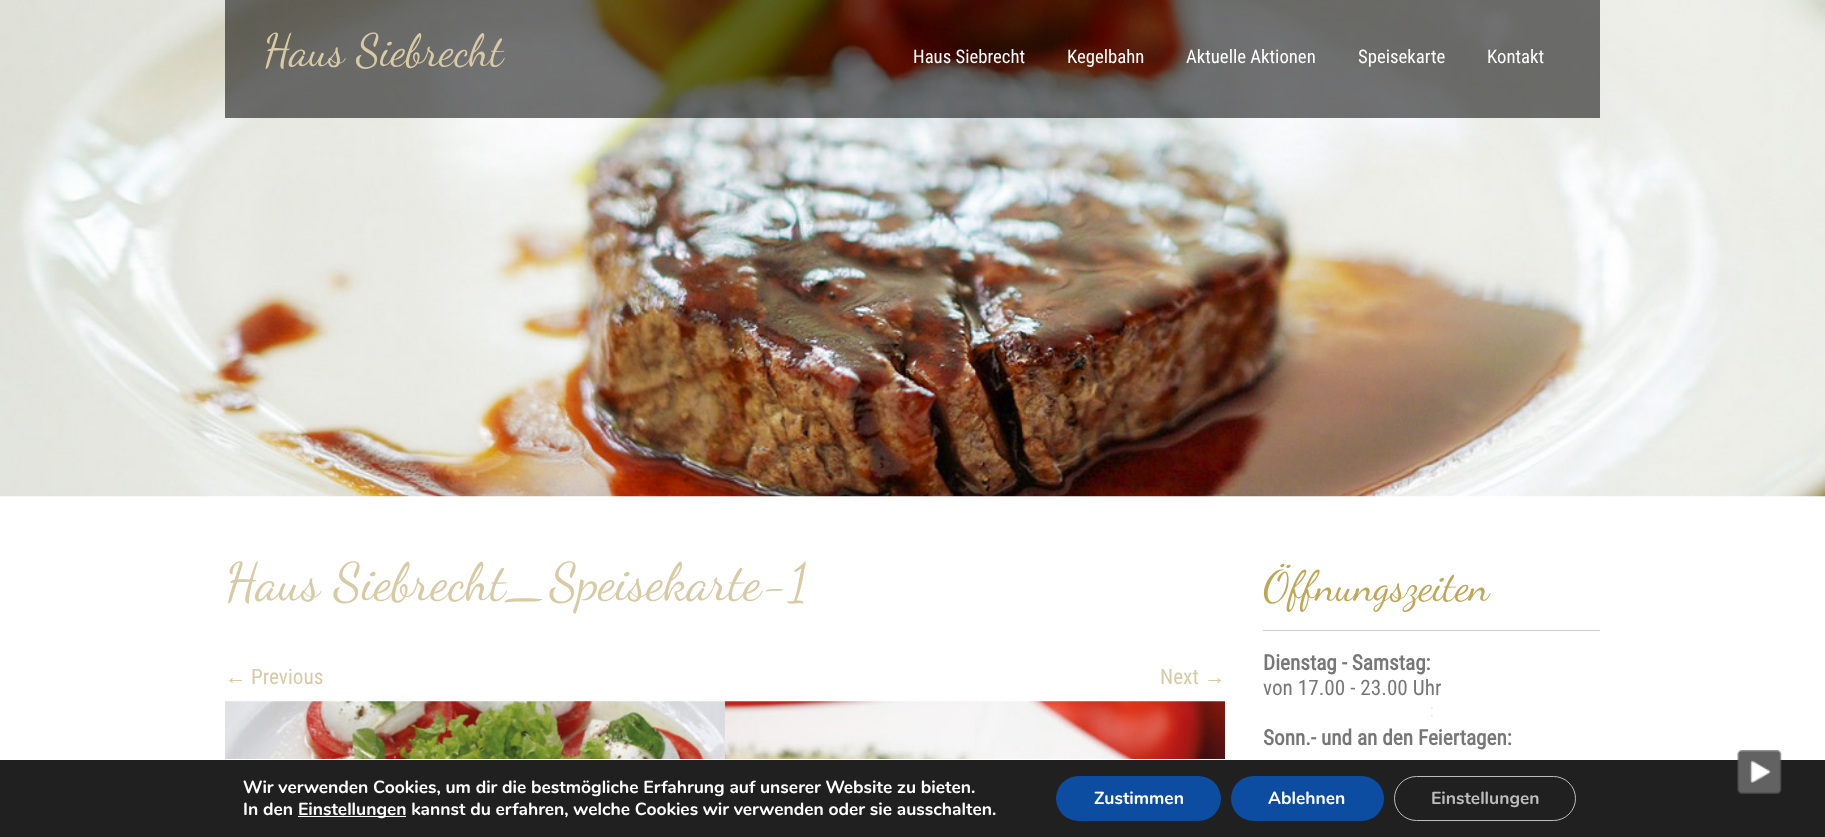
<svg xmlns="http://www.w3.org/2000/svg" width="1825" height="837">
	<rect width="100%" height="100%" fill="#FFFFFF" />
	<image x="0" y="0" width="1825" height="497" href="assets/img1.png" />
	<rect x="225" y="0" width="1375" height="118" fill="#000000" fill-opacity="0.55" />
	<text x="263" y="65" font-family="Dancing Script" font-size="45" fill="#D8CAA4">Haus Siebrecht</text>
	<g font-family="Roboto Condensed" font-size="18.75" fill="#FFFFFF">
		<text x="913" y="63">Haus Siebrecht</text>
		<text x="1067" y="63">Kegelbahn</text>
		<text x="1186" y="63">Aktuelle Aktionen</text>
		<text x="1358" y="63">Speisekarte</text>
		<text x="1487" y="63">Kontakt</text>
	</g>
	<text x="225" y="599" font-family="Dancing Script" font-size="52.5" fill="#D8CAA4">Haus Siebrecht_Speisekarte-1</text>
	<text x="225" y="684" font-family="Liberation Sans" font-size="21.25" fill="#D8CAA4">←</text>
	<g font-family="Roboto Condensed" font-size="21.25" fill="#D8CAA4">
		<text x="251" y="684">Previous</text>
		<text x="1160" y="684">Next</text>
	</g>
	<text x="1204" y="684" font-family="Liberation Sans" font-size="21.25" fill="#D8CAA4">→</text>
	<image x="225" y="701" width="1000" height="58" href="assets/img2.png" />
	<rect x="1263" y="630" width="337" height="1" fill="#CCCCCC" />
	<text x="1263" y="600" font-family="Dancing Script" font-size="42.5" fill="#C0A756">Öffnungszeiten</text>
	<text x="1263" y="670" font-family="Roboto Condensed" font-size="21.25" font-weight="700" fill="#777777">Dienstag - Samstag:</text>
	<text x="1263" y="695" font-family="Roboto Condensed" font-size="21.25" fill="#777777">von 17.00 - 23.00 Uhr</text>
	<image x="1431" y="707" width="2" height="10" href="assets/img3.png" />
	<text x="1263" y="745" font-family="Roboto Condensed" font-size="21.25" font-weight="700" fill="#777777">Sonn.- und an den Feiertagen:</text>
	<rect x="0" y="760" width="1825" height="77" fill="#202020" />
	<image x="1737" y="750" width="45" height="44" href="assets/img4.png" />
	<g font-family="Nunito" font-size="17.5" font-weight="700" fill="#FFFFFF">
		<text x="243" y="793">Wir verwenden Cookies, um dir die bestmögliche Erfahrung auf unserer Website zu bieten.</text>
		<text x="243" y="815">In den</text>
	</g>
	<rect x="298" y="816" width="108" height="1" fill="#FFFFFF" />
	<text x="298" y="815" font-family="Nunito" font-size="17.5" font-weight="700" fill="#FFFFFF">Einstellungen kannst du erfahren, welche Cookies wir verwenden oder sie ausschalten.</text>
	<rect x="1056" y="776" width="165" height="45" rx="22.5" fill="#0C4DA2" />
	<text x="1094" y="804" font-family="Nunito" font-size="17.5" font-weight="700" fill="#FFFFFF">Zustimmen</text>
	<rect x="1231" y="776" width="153" height="45" rx="22.5" fill="#0C4DA2" />
	<text x="1268" y="804" font-family="Nunito" font-size="17.5" font-weight="700" fill="#FFFFFF">Ablehnen</text>
	<rect x="1394.5" y="776.5" width="181" height="44" rx="22" fill="none" stroke="#BCBCBC" />
	<text x="1431" y="804" font-family="Nunito" font-size="17.5" font-weight="700" fill="#BCBCBC">Einstellungen</text>
</svg>
